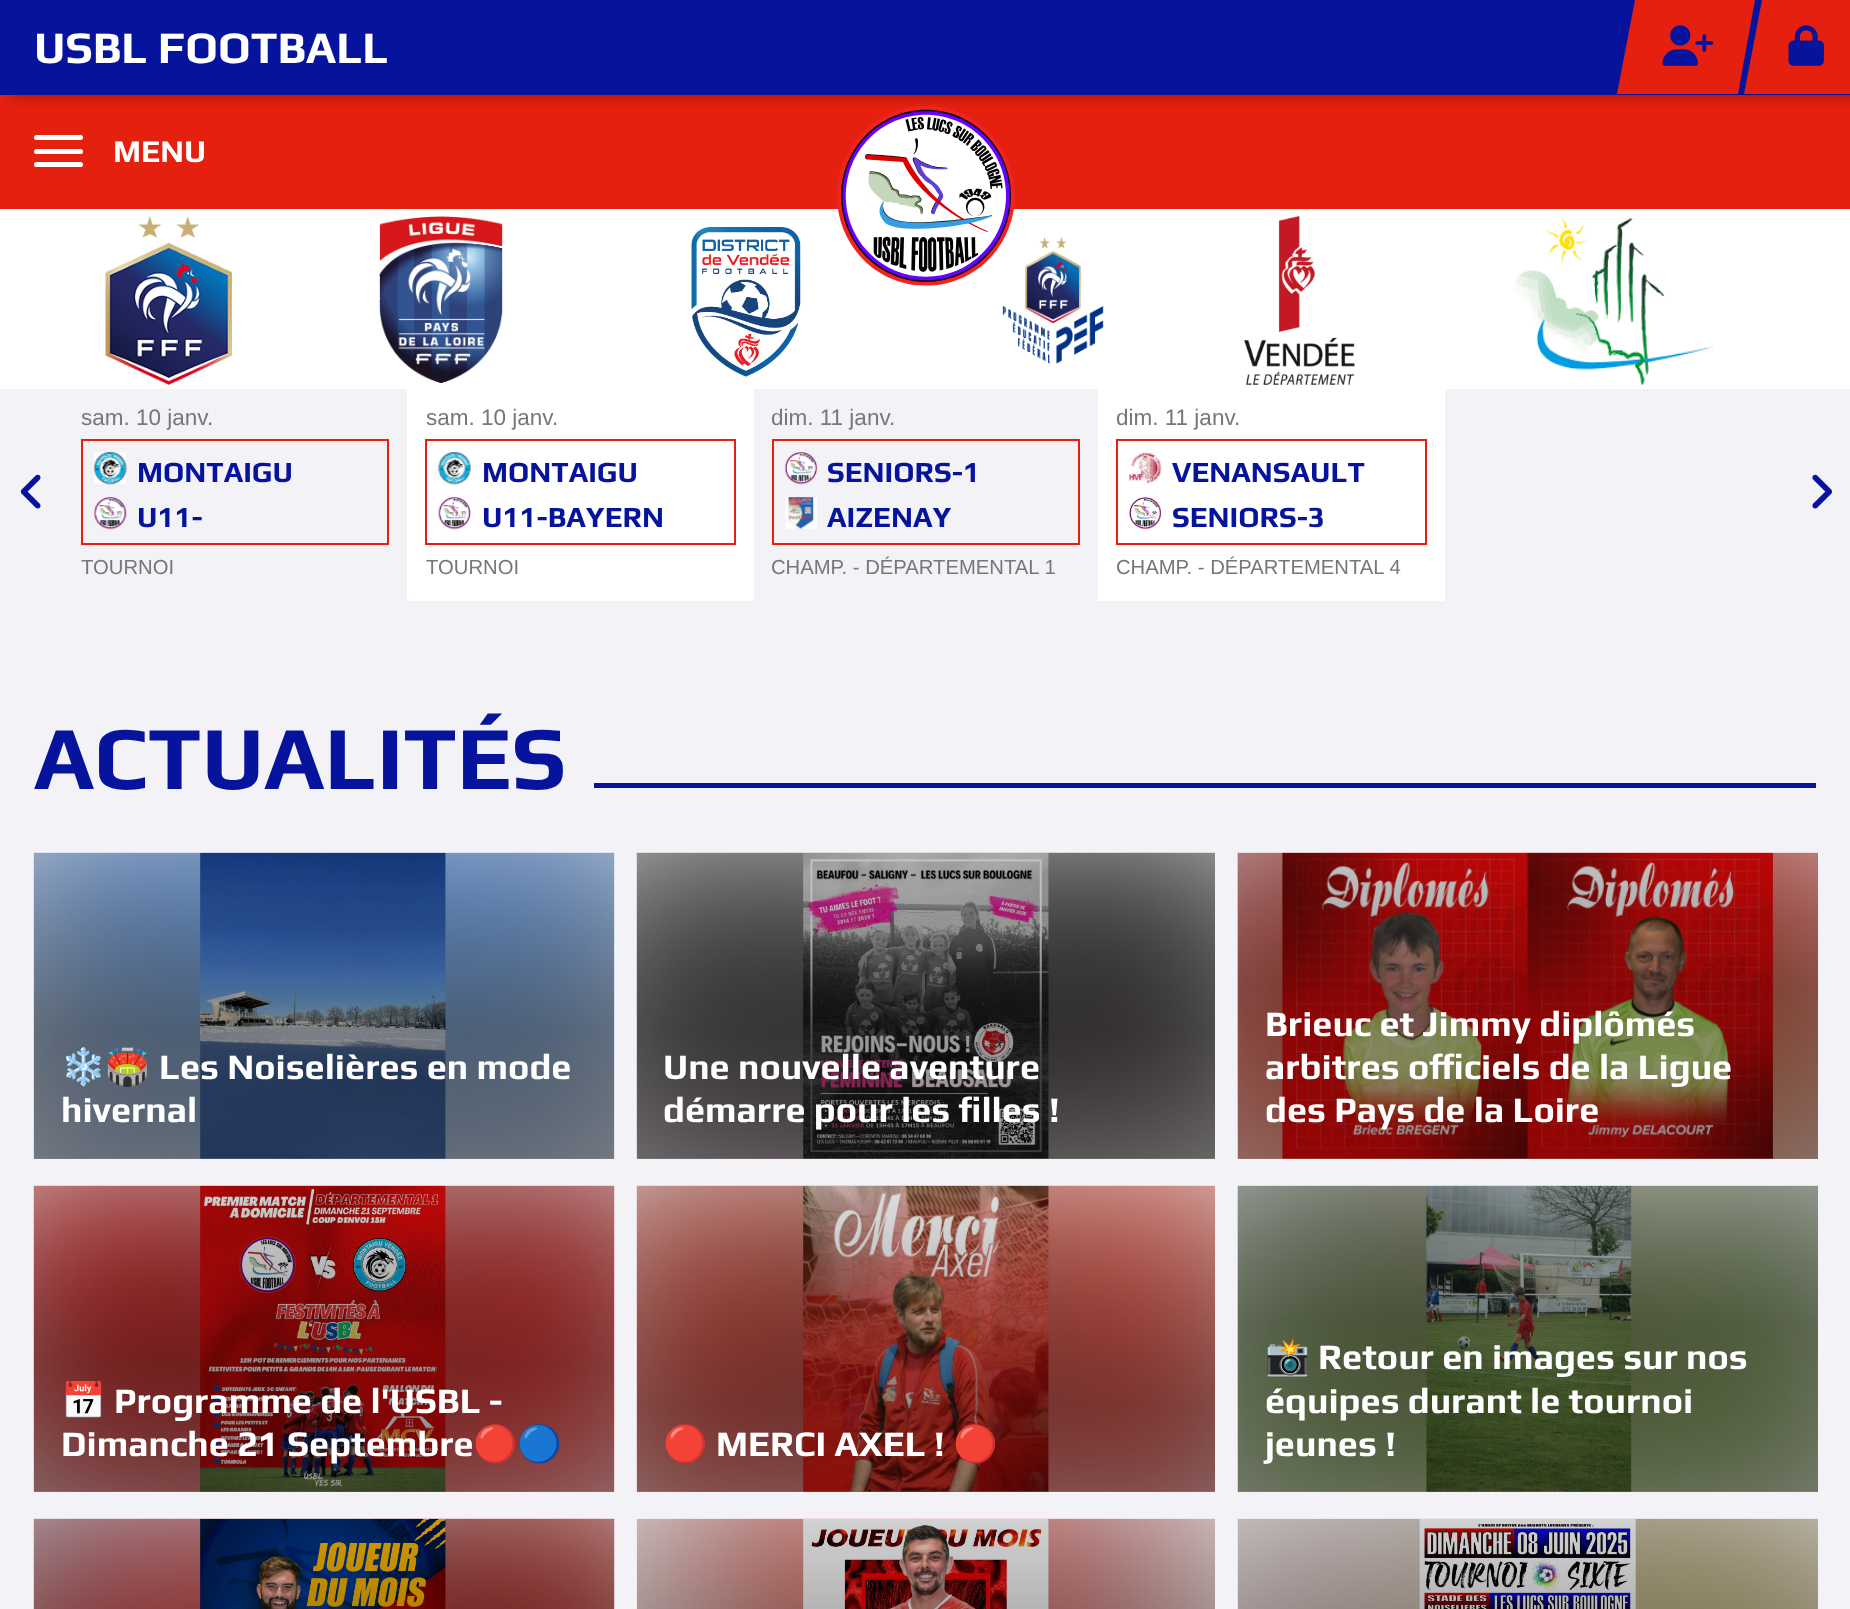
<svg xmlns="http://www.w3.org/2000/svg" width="1850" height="1609">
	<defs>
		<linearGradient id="g1" gradientUnits="userSpaceOnUse" x1="324" y1="713" x2="324" y2="1028"><stop offset="0" stop-color="#000000" stop-opacity="0" /><stop offset="1" stop-color="#000000" stop-opacity="0.4" /></linearGradient>
		<linearGradient id="g2" gradientUnits="userSpaceOnUse" x1="926" y1="713" x2="926" y2="1028"><stop offset="0" stop-color="#000000" stop-opacity="0" /><stop offset="1" stop-color="#000000" stop-opacity="0.4" /></linearGradient>
		<linearGradient id="g3" gradientUnits="userSpaceOnUse" x1="1528" y1="668" x2="1528" y2="983"><stop offset="0" stop-color="#000000" stop-opacity="0" /><stop offset="1" stop-color="#000000" stop-opacity="0.4" /></linearGradient>
		<linearGradient id="g4" gradientUnits="userSpaceOnUse" x1="324" y1="1046" x2="324" y2="1361"><stop offset="0" stop-color="#000000" stop-opacity="0" /><stop offset="1" stop-color="#000000" stop-opacity="0.4" /></linearGradient>
		<linearGradient id="g5" gradientUnits="userSpaceOnUse" x1="926" y1="1089" x2="926" y2="1404"><stop offset="0" stop-color="#000000" stop-opacity="0" /><stop offset="1" stop-color="#000000" stop-opacity="0.4" /></linearGradient>
		<linearGradient id="g6" gradientUnits="userSpaceOnUse" x1="1528" y1="1004" x2="1528" y2="1319"><stop offset="0" stop-color="#000000" stop-opacity="0" /><stop offset="1" stop-color="#000000" stop-opacity="0.4" /></linearGradient>
		<linearGradient id="g7" gradientUnits="userSpaceOnUse" x1="324" y1="1379" x2="324" y2="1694"><stop offset="0" stop-color="#000000" stop-opacity="0" /><stop offset="1" stop-color="#000000" stop-opacity="0.4" /></linearGradient>
		<linearGradient id="g8" gradientUnits="userSpaceOnUse" x1="926" y1="1379" x2="926" y2="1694"><stop offset="0" stop-color="#000000" stop-opacity="0" /><stop offset="1" stop-color="#000000" stop-opacity="0.4" /></linearGradient>
		<linearGradient id="g9" gradientUnits="userSpaceOnUse" x1="1528" y1="1379" x2="1528" y2="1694"><stop offset="0" stop-color="#000000" stop-opacity="0" /><stop offset="1" stop-color="#000000" stop-opacity="0.4" /></linearGradient>
	</defs>
	<rect width="100%" height="100%" fill="#E6200E" />
	<rect x="9" y="5" width="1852" height="94" fill="#000000" fill-opacity="0.2" filter="blur(5.5px)" />
	<rect x="0" y="0" width="1850" height="95" fill="#06139C" />
	<text x="34" y="63" font-family="Play" font-size="45" font-weight="700" fill="#FFFFFF">USBL FOOTBALL</text>
	<path d="M1630 0H1757L1740 94H1613Z" fill="#E6200E" />
	<path d="M1630 0H1635L1617 94H1613Z" fill="#06139C" />
	<path d="M1628 0H1632L1615 94H1610Z" fill="#06139C" />
	<image x="1662" y="25" width="52" height="41" href="assets/img1.png" />
	<path d="M1757 0H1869L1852 94H1740Z" fill="#E6200E" />
	<path d="M1757 0H1762L1744 94H1740Z" fill="#06139C" />
	<path d="M1755 0H1760L1742 94H1738Z" fill="#06139C" />
	<image x="1788" y="25" width="36" height="41" href="assets/img2.png" />
	<rect x="34" y="135" width="49" height="5" rx="2.5" fill="#FFFFFF" />
	<rect x="34" y="149" width="49" height="5" rx="2.5" fill="#FFFFFF" />
	<text x="113" y="162" font-family="Play" font-size="31.5" font-weight="700" fill="#FFFFFF">MENU</text>
	<rect x="34" y="162" width="49" height="5" rx="2.5" fill="#FFFFFF" />
	<rect x="0" y="209" width="1850" height="180" fill="#FFFFFF" />
	<image x="1002" y="237" width="102" height="127" href="assets/img7.png" />
	<image x="837" y="106" width="178" height="180" href="assets/img3.png" />
	<rect x="0" y="389" width="1850" height="1220" fill="#F3F2F7" />
	<image x="105" y="216" width="127" height="169" href="assets/img4.png" />
	<image x="379" y="216" width="124" height="167" href="assets/img5.png" />
	<image x="690" y="226" width="112" height="151" href="assets/img6.png" />
	<image x="1244" y="216" width="111" height="169" href="assets/img8.png" />
	<image x="1513" y="216" width="201" height="169" href="assets/img9.png" />
	<text x="81" y="425" font-family="Liberation Sans" font-size="22.5" fill="#777777">sam. 10 janv.</text>
	<rect x="82" y="440" width="306" height="104" fill="none" stroke="#E6200E" stroke-width="2" />
	<image x="94" y="452" width="33" height="33" href="assets/img10.png" />
	<text x="137" y="482" font-family="Play" font-size="29.25" font-weight="700" fill="#06139C">MONTAIGU</text>
	<image x="94" y="497" width="33" height="33" href="assets/img11.png" />
	<text x="137" y="527" font-family="Play" font-size="29.25" font-weight="700" fill="#06139C">U11-</text>
	<text x="81" y="574" font-family="Liberation Sans" font-size="20.25" fill="#777777">TOURNOI</text>
	<rect x="407" y="389" width="347" height="212" fill="#FFFFFF" />
	<text x="426" y="425" font-family="Liberation Sans" font-size="22.5" fill="#777777">sam. 10 janv.</text>
	<rect x="426" y="440" width="309" height="104" fill="none" stroke="#E6200E" stroke-width="2" />
	<image x="438" y="452" width="33" height="33" href="assets/img12.png" />
	<text x="482" y="482" font-family="Play" font-size="29.25" font-weight="700" fill="#06139C">MONTAIGU</text>
	<image x="438" y="497" width="33" height="33" href="assets/img13.png" />
	<text x="482" y="527" font-family="Play" font-size="29.25" font-weight="700" fill="#06139C">U11-BAYERN</text>
	<text x="426" y="574" font-family="Liberation Sans" font-size="20.25" fill="#777777">TOURNOI</text>
	<text x="771" y="425" font-family="Liberation Sans" font-size="22.5" fill="#777777">dim. 11 janv.</text>
	<rect x="773" y="440" width="306" height="104" fill="none" stroke="#E6200E" stroke-width="2" />
	<image x="784" y="452" width="33" height="33" href="assets/img14.png" />
	<text x="827" y="482" font-family="Play" font-size="29.25" font-weight="700" fill="#06139C">SENIORS-1</text>
	<image x="785" y="497" width="32" height="33" href="assets/img15.png" />
	<text x="827" y="527" font-family="Play" font-size="29.25" font-weight="700" fill="#06139C">AIZENAY</text>
	<text x="771" y="574" font-family="Liberation Sans" font-size="20.25" fill="#777777">CHAMP. - DÉPARTEMENTAL 1</text>
	<rect x="1098" y="389" width="347" height="212" fill="#FFFFFF" />
	<text x="1116" y="425" font-family="Liberation Sans" font-size="22.5" fill="#777777">dim. 11 janv.</text>
	<rect x="1117" y="440" width="309" height="104" fill="none" stroke="#E6200E" stroke-width="2" />
	<image x="1129" y="452" width="33" height="32" href="assets/img16.png" />
	<text x="1172" y="482" font-family="Play" font-size="29.25" font-weight="700" fill="#06139C">VENANSAULT</text>
	<image x="1129" y="497" width="32" height="32" href="assets/img17.png" />
	<text x="1172" y="527" font-family="Play" font-size="29.25" font-weight="700" fill="#06139C">SENIORS-3</text>
	<text x="1116" y="574" font-family="Liberation Sans" font-size="20.25" fill="#777777">CHAMP. - DÉPARTEMENTAL 4</text>
	<image x="20" y="474" width="21" height="35" href="assets/img18.png" />
	<image x="1812" y="474" width="20" height="35" href="assets/img19.png" />
	<text x="34" y="789" font-family="Play" font-size="90" font-weight="700" fill="#06139C">ACTUALITÉS</text>
	<rect x="594" y="783" width="1222" height="5" fill="#06139C" />
	<rect x="34" y="853" width="580" height="306" fill="#FFFFFF" />
	<image x="33" y="852" width="582" height="307" href="assets/img20.png" />
	<image x="200" y="852" width="246" height="307" href="assets/img21.png" />
	<rect x="34" y="1028" width="580" height="131" fill="#000000" fill-opacity="0.4" />
	<rect x="34" y="853" width="580" height="175" fill="url(#g1)" />
	<text x="61" y="1079" font-family="Noto Color Emoji" font-size="36" fill="#FFFFFF">❄️🏟️</text>
	<g font-family="Play" font-size="36" font-weight="700" fill="#FFFFFF">
		<text x="159" y="1079">Les Noiselières en mode</text>
		<text x="61" y="1122">hivernal</text>
	</g>
	<rect x="637" y="853" width="578" height="306" fill="#FFFFFF" />
	<image x="636" y="852" width="579" height="307" href="assets/img22.png" />
	<image x="803" y="853" width="246" height="306" href="assets/img23.png" />
	<rect x="637" y="1028" width="578" height="131" fill="#000000" fill-opacity="0.4" />
	<rect x="637" y="853" width="578" height="175" fill="url(#g2)" />
	<g font-family="Play" font-size="36" font-weight="700" fill="#FFFFFF">
		<text x="663" y="1079">Une nouvelle aventure</text>
		<text x="663" y="1122">démarre pour les filles !</text>
	</g>
	<rect x="1238" y="853" width="580" height="306" fill="#FFFFFF" />
	<image x="1237" y="852" width="581" height="307" href="assets/img24.png" />
	<image x="1282" y="852" width="491" height="307" href="assets/img25.png" />
	<rect x="1238" y="983" width="580" height="176" fill="#000000" fill-opacity="0.4" />
	<rect x="1238" y="853" width="580" height="130" fill="url(#g3)" />
	<g font-family="Play" font-size="36" font-weight="700" fill="#FFFFFF">
		<text x="1265" y="1036">Brieuc et Jimmy diplômés</text>
		<text x="1265" y="1079">arbitres officiels de la Ligue</text>
		<text x="1265" y="1122">des Pays de la Loire</text>
	</g>
	<rect x="34" y="1186" width="580" height="306" fill="#FFFFFF" />
	<image x="33" y="1185" width="582" height="307" href="assets/img26.png" />
	<image x="200" y="1185" width="246" height="307" href="assets/img27.png" />
	<rect x="34" y="1361" width="580" height="131" fill="#000000" fill-opacity="0.4" />
	<rect x="34" y="1186" width="580" height="175" fill="url(#g4)" />
	<text x="61" y="1413" font-family="Noto Color Emoji" font-size="36" fill="#FFFFFF">📅</text>
	<g font-family="Play" font-size="36" font-weight="700" fill="#FFFFFF">
		<text x="114" y="1413">Programme de l'USBL -</text>
		<text x="61" y="1456">Dimanche 21 Septembre</text>
	</g>
	<text x="473" y="1456" font-family="Noto Color Emoji" font-size="36" fill="#FFFFFF">🔴🔵</text>
	<rect x="637" y="1186" width="578" height="306" fill="#FFFFFF" />
	<image x="636" y="1185" width="579" height="307" href="assets/img28.png" />
	<image x="803" y="1185" width="246" height="307" href="assets/img29.png" />
	<rect x="637" y="1404" width="578" height="88" fill="#000000" fill-opacity="0.4" />
	<rect x="637" y="1186" width="578" height="218" fill="url(#g5)" />
	<text x="663" y="1456" font-family="Noto Color Emoji" font-size="36" fill="#FFFFFF">🔴</text>
	<text x="716" y="1456" font-family="Play" font-size="36" font-weight="700" fill="#FFFFFF">MERCI AXEL !</text>
	<text x="953" y="1456" font-family="Noto Color Emoji" font-size="36" fill="#FFFFFF">🔴</text>
	<rect x="1238" y="1186" width="580" height="306" fill="#FFFFFF" />
	<image x="1237" y="1185" width="581" height="307" href="assets/img30.png" />
	<image x="1426" y="1185" width="206" height="307" href="assets/img31.png" />
	<rect x="1238" y="1319" width="580" height="173" fill="#000000" fill-opacity="0.4" />
	<rect x="1238" y="1186" width="580" height="133" fill="url(#g6)" />
	<text x="1265" y="1369" font-family="Noto Color Emoji" font-size="36" fill="#FFFFFF">📸</text>
	<g font-family="Play" font-size="36" font-weight="700" fill="#FFFFFF">
		<text x="1318" y="1369">Retour en images sur nos</text>
		<text x="1265" y="1413">équipes durant le tournoi</text>
		<text x="1265" y="1456">jeunes !</text>
	</g>
	<rect x="34" y="1519" width="580" height="90" fill="#FFFFFF" />
	<image x="33" y="1518" width="582" height="91" href="assets/img32.png" />
	<image x="200" y="1518" width="246" height="91" href="assets/img33.png" />
	<rect x="34" y="1519" width="580" height="90" fill="url(#g7)" />
	<rect x="637" y="1519" width="578" height="90" fill="#FFFFFF" />
	<image x="636" y="1518" width="579" height="91" href="assets/img34.png" />
	<image x="803" y="1519" width="246" height="90" href="assets/img35.png" />
	<rect x="637" y="1519" width="578" height="90" fill="url(#g8)" />
	<rect x="1238" y="1519" width="580" height="90" fill="#FFFFFF" />
	<image x="1237" y="1518" width="581" height="91" href="assets/img36.png" />
	<image x="1419" y="1519" width="217" height="90" href="assets/img37.png" />
	<rect x="1238" y="1519" width="580" height="90" fill="url(#g9)" />
</svg>
